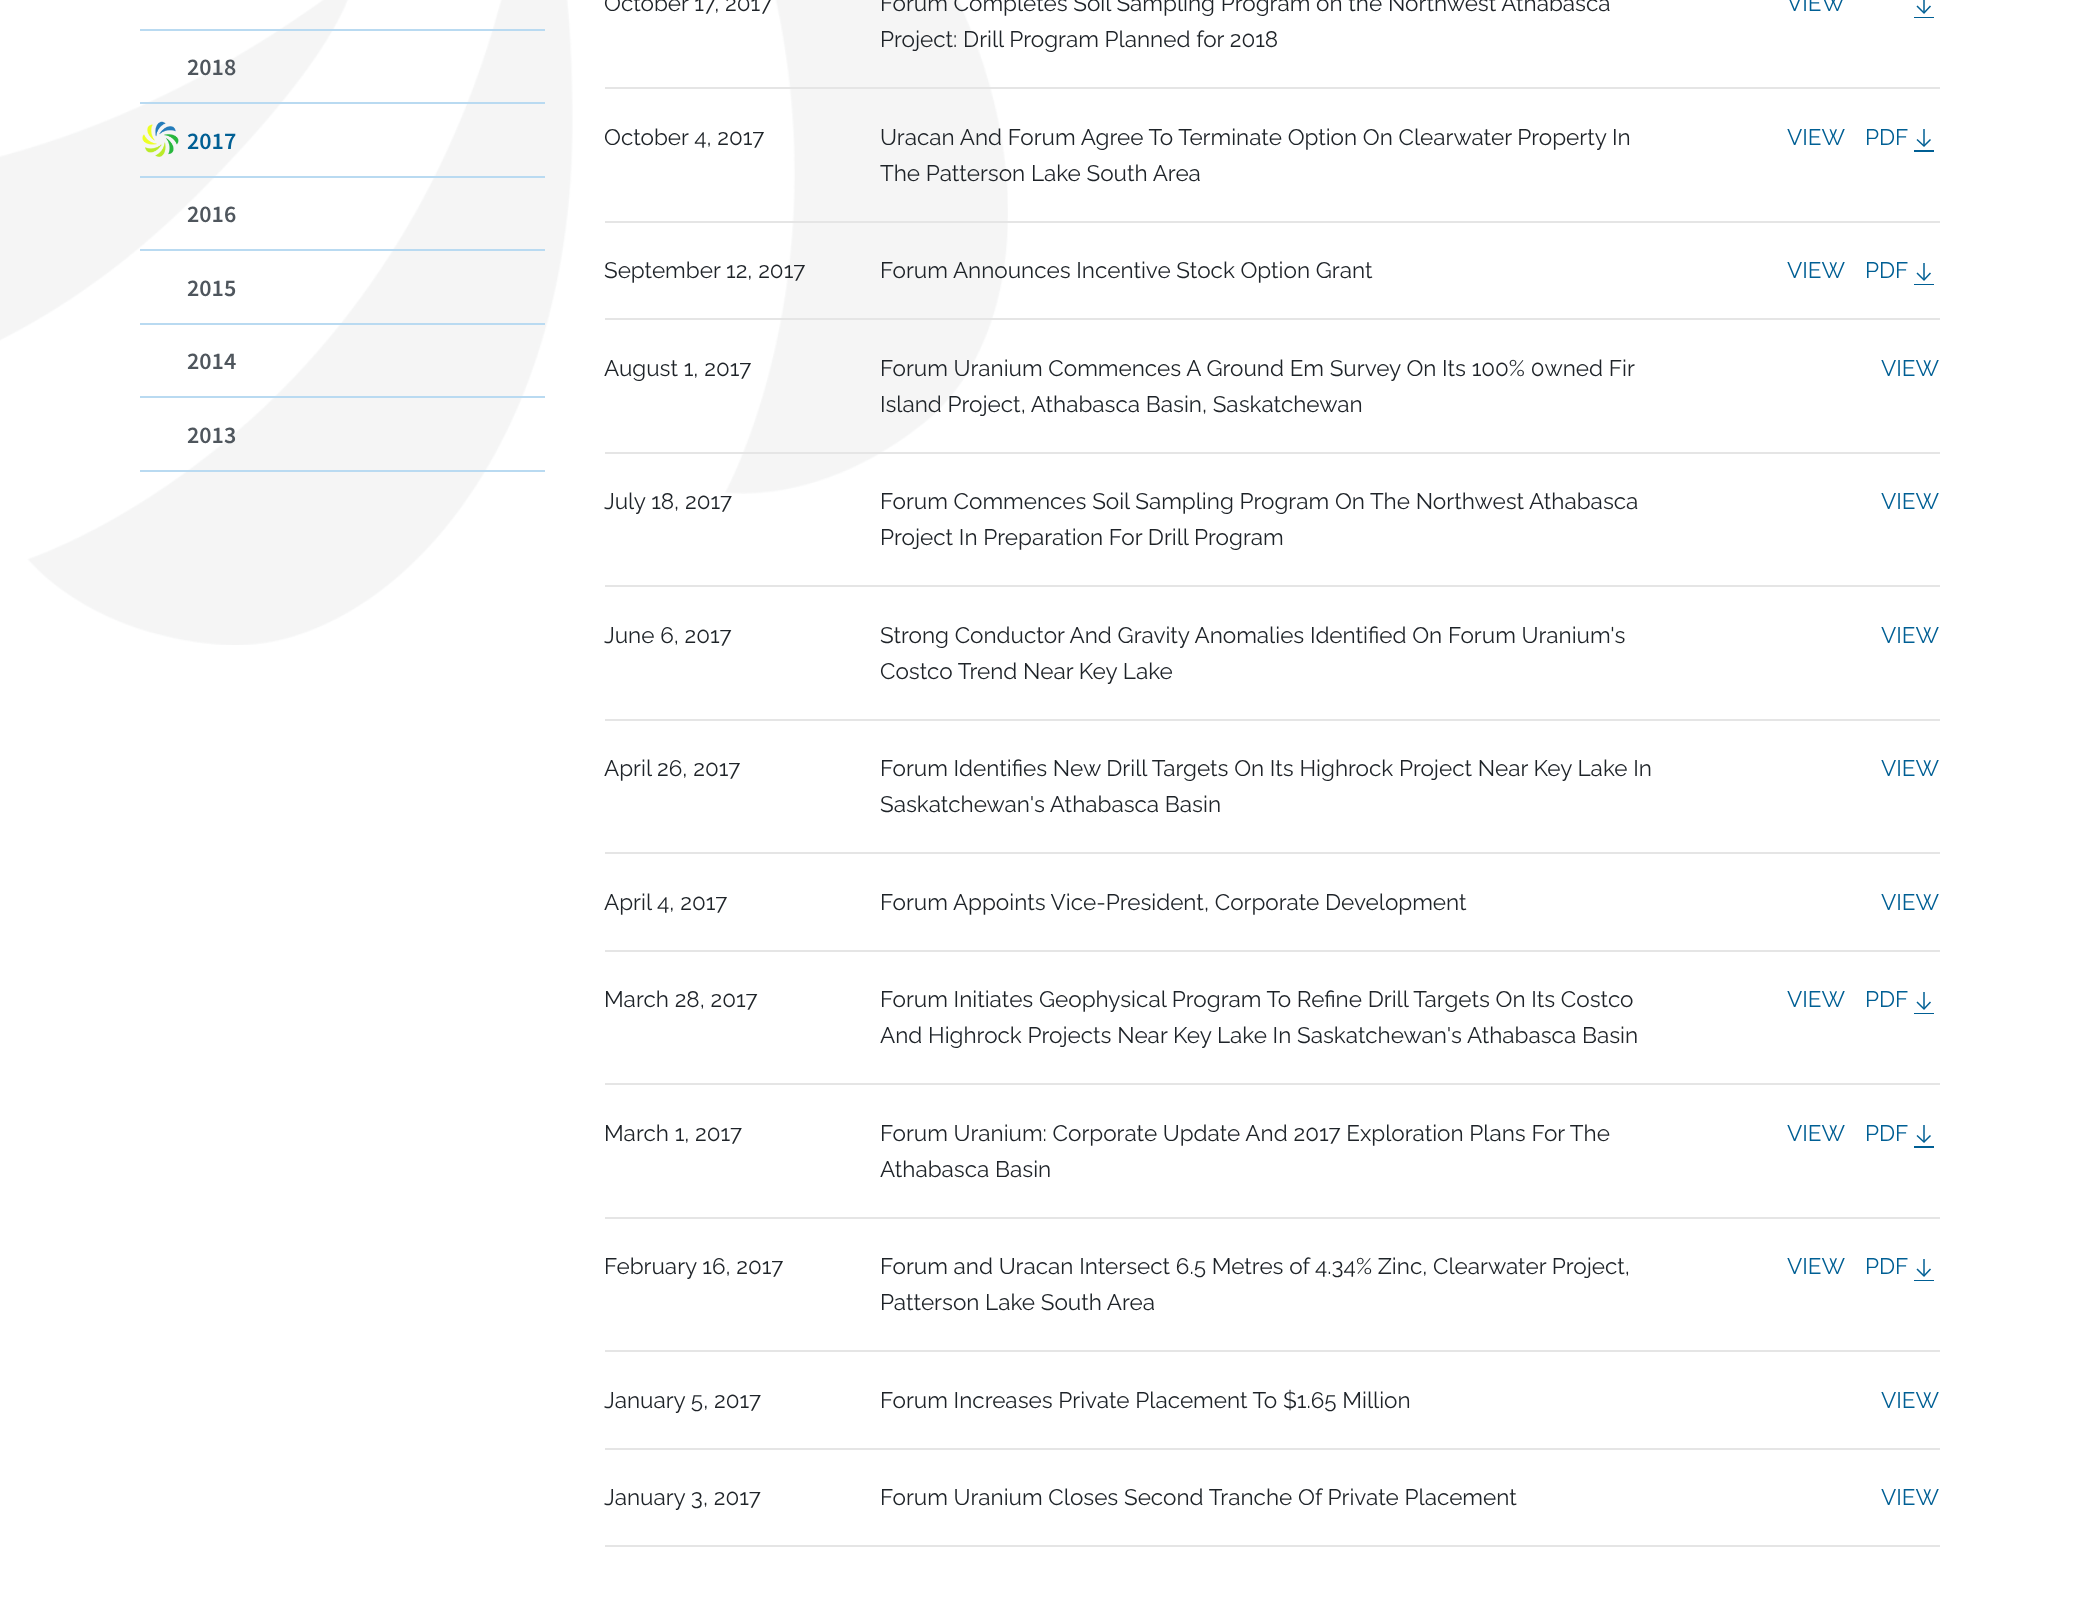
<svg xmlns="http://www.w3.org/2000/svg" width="2077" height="1613">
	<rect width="100%" height="100%" fill="#FFFFFF" />
	<image x="0" y="0" width="1008" height="645" href="assets/img1.png" />
	<rect x="140" y="29" width="405" height="2" fill="#B9DAF1" />
	<rect x="140" y="102" width="405" height="2" fill="#B9DAF1" />
	<text x="187" y="75" font-family="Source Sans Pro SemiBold" font-size="24" font-weight="600" fill="#4F565D">2018</text>
	<image x="142" y="121" width="37" height="36" href="assets/img2.png" />
	<rect x="140" y="176" width="405" height="2" fill="#B9DAF1" />
	<text x="187" y="149" font-family="Source Sans Pro SemiBold" font-size="24" font-weight="600" fill="#005F94">2017</text>
	<rect x="140" y="249" width="405" height="2" fill="#B9DAF1" />
	<text x="187" y="222" font-family="Source Sans Pro SemiBold" font-size="24" font-weight="600" fill="#4F565D">2016</text>
	<rect x="140" y="323" width="405" height="2" fill="#B9DAF1" />
	<text x="187" y="296" font-family="Source Sans Pro SemiBold" font-size="24" font-weight="600" fill="#4F565D">2015</text>
	<rect x="140" y="396" width="405" height="2" fill="#B9DAF1" />
	<text x="187" y="369" font-family="Source Sans Pro SemiBold" font-size="24" font-weight="600" fill="#4F565D">2014</text>
	<rect x="140" y="470" width="405" height="2" fill="#B9DAF1" />
	<text x="187" y="443" font-family="Source Sans Pro SemiBold" font-size="24" font-weight="600" fill="#4F565D">2013</text>
	<g font-family="Raleway" font-size="22.5" fill="#1E2328">
		<text x="604" y="11">October 17, 2017</text>
		<text x="880" y="11">Forum Completes Soil Sampling Program on the Northwest Athabasca</text>
		<text x="880" y="47">Project: Drill Program Planned for 2018</text>
	</g>
	<text x="1787" y="11" font-family="Raleway" font-size="22.5" fill="#005F94">VIEW</text>
	<path d="M1930.5 6L1924 13L1917 6" fill="none" stroke="#005F94" stroke-width="1.5" />
	<rect x="1923" y="0" width="2" height="12" fill="#005F94" fill-opacity="0.75" />
	<rect x="1914" y="17" width="20" height="1" fill="#005F94" />
	<rect x="605" y="87" width="1335" height="2" fill="#E5E5E5" />
	<g font-family="Raleway" font-size="22.5" fill="#1E2328">
		<text x="604" y="145">October 4, 2017</text>
		<text x="880" y="145">Uracan And Forum Agree To Terminate Option On Clearwater Property In</text>
		<text x="880" y="181">The Patterson Lake South Area</text>
	</g>
	<g font-family="Raleway" font-size="22.5" fill="#005F94">
		<text x="1787" y="145">VIEW</text>
		<text x="1865" y="145">PDF</text>
	</g>
	<path d="M1930.5 139.5L1924 146L1917 139.5" fill="none" stroke="#005F94" stroke-width="1.5" />
	<rect x="1923" y="129" width="2" height="17" fill="#005F94" fill-opacity="0.75" />
	<rect x="1914" y="150" width="20" height="2" fill="#005F94" />
	<rect x="605" y="221" width="1335" height="2" fill="#E5E5E5" />
	<g font-family="Raleway" font-size="22.5" fill="#1E2328">
		<text x="604" y="278">September 12, 2017</text>
		<text x="880" y="278">Forum Announces Incentive Stock Option Grant</text>
	</g>
	<g font-family="Raleway" font-size="22.5" fill="#005F94">
		<text x="1787" y="278">VIEW</text>
		<text x="1865" y="278">PDF</text>
	</g>
	<path d="M1930.5 273L1924 280L1917 273" fill="none" stroke="#005F94" stroke-width="1.5" />
	<rect x="1923" y="263" width="2" height="16" fill="#005F94" fill-opacity="0.75" />
	<rect x="1914" y="284" width="20" height="1" fill="#005F94" />
	<rect x="605" y="318" width="1335" height="2" fill="#E5E5E5" />
	<g font-family="Raleway" font-size="22.5" fill="#1E2328">
		<text x="604" y="376">August 1, 2017</text>
		<text x="880" y="376">Forum Uranium Commences A Ground Em Survey On Its 100% 0wned Fir</text>
		<text x="880" y="412">Island Project, Athabasca Basin, Saskatchewan</text>
	</g>
	<text x="1881" y="376" font-family="Raleway" font-size="22.5" fill="#005F94">VIEW</text>
	<rect x="605" y="452" width="1335" height="2" fill="#E5E5E5" />
	<g font-family="Raleway" font-size="22.5" fill="#1E2328">
		<text x="604" y="509">July 18, 2017</text>
		<text x="880" y="509">Forum Commences Soil Sampling Program On The Northwest Athabasca</text>
		<text x="880" y="545">Project In Preparation For Drill Program</text>
	</g>
	<text x="1881" y="509" font-family="Raleway" font-size="22.5" fill="#005F94">VIEW</text>
	<rect x="605" y="585" width="1335" height="2" fill="#E5E5E5" />
	<g font-family="Raleway" font-size="22.5" fill="#1E2328">
		<text x="604" y="643">June 6, 2017</text>
		<text x="880" y="643">Strong Conductor And Gravity Anomalies Identified On Forum Uranium's</text>
		<text x="880" y="679">Costco Trend Near Key Lake</text>
	</g>
	<text x="1881" y="643" font-family="Raleway" font-size="22.5" fill="#005F94">VIEW</text>
	<rect x="605" y="719" width="1335" height="2" fill="#E5E5E5" />
	<g font-family="Raleway" font-size="22.5" fill="#1E2328">
		<text x="604" y="776">April 26, 2017</text>
		<text x="880" y="776">Forum Identifies New Drill Targets On Its Highrock Project Near Key Lake In</text>
		<text x="880" y="812">Saskatchewan's Athabasca Basin</text>
	</g>
	<text x="1881" y="776" font-family="Raleway" font-size="22.5" fill="#005F94">VIEW</text>
	<rect x="605" y="852" width="1335" height="2" fill="#E5E5E5" />
	<g font-family="Raleway" font-size="22.5" fill="#1E2328">
		<text x="604" y="910">April 4, 2017</text>
		<text x="880" y="910">Forum Appoints Vice-President, Corporate Development</text>
	</g>
	<text x="1881" y="910" font-family="Raleway" font-size="22.5" fill="#005F94">VIEW</text>
	<rect x="605" y="950" width="1335" height="2" fill="#E5E5E5" />
	<g font-family="Raleway" font-size="22.5" fill="#1E2328">
		<text x="604" y="1007">March 28, 2017</text>
		<text x="880" y="1007">Forum Initiates Geophysical Program To Refine Drill Targets On Its Costco</text>
		<text x="880" y="1043">And Highrock Projects Near Key Lake In Saskatchewan's Athabasca Basin</text>
	</g>
	<g font-family="Raleway" font-size="22.5" fill="#005F94">
		<text x="1787" y="1007">VIEW</text>
		<text x="1865" y="1007">PDF</text>
	</g>
	<path d="M1930.5 1002L1924 1009L1917 1002" fill="none" stroke="#005F94" stroke-width="1.5" />
	<rect x="1923" y="992" width="2" height="16" fill="#005F94" fill-opacity="0.75" />
	<rect x="1914" y="1013" width="20" height="1" fill="#005F94" />
	<rect x="605" y="1083" width="1335" height="2" fill="#E5E5E5" />
	<g font-family="Raleway" font-size="22.5" fill="#1E2328">
		<text x="604" y="1141">March 1, 2017</text>
		<text x="880" y="1141">Forum Uranium: Corporate Update And 2017 Exploration Plans For The</text>
		<text x="880" y="1177">Athabasca Basin</text>
	</g>
	<g font-family="Raleway" font-size="22.5" fill="#005F94">
		<text x="1787" y="1141">VIEW</text>
		<text x="1865" y="1141">PDF</text>
	</g>
	<path d="M1930.5 1135.5L1924 1142L1917 1135.5" fill="none" stroke="#005F94" stroke-width="1.5" />
	<rect x="1923" y="1125" width="2" height="17" fill="#005F94" fill-opacity="0.75" />
	<rect x="1914" y="1146" width="20" height="2" fill="#005F94" />
	<rect x="605" y="1217" width="1335" height="2" fill="#E5E5E5" />
	<g font-family="Raleway" font-size="22.5" fill="#1E2328">
		<text x="604" y="1274">February 16, 2017</text>
		<text x="880" y="1274">Forum and Uracan Intersect 6.5 Metres of 4.34% Zinc, Clearwater Project,</text>
		<text x="880" y="1310">Patterson Lake South Area</text>
	</g>
	<g font-family="Raleway" font-size="22.5" fill="#005F94">
		<text x="1787" y="1274">VIEW</text>
		<text x="1865" y="1274">PDF</text>
	</g>
	<path d="M1930.5 1269L1924 1276L1917 1269" fill="none" stroke="#005F94" stroke-width="1.5" />
	<rect x="1923" y="1259" width="2" height="16" fill="#005F94" fill-opacity="0.75" />
	<rect x="1914" y="1280" width="20" height="1" fill="#005F94" />
	<rect x="605" y="1350" width="1335" height="2" fill="#E5E5E5" />
	<g font-family="Raleway" font-size="22.5" fill="#1E2328">
		<text x="604" y="1408">January 5, 2017</text>
		<text x="880" y="1408">Forum Increases Private Placement To $1.65 Million</text>
	</g>
	<text x="1881" y="1408" font-family="Raleway" font-size="22.5" fill="#005F94">VIEW</text>
	<rect x="605" y="1448" width="1335" height="2" fill="#E5E5E5" />
	<g font-family="Raleway" font-size="22.5" fill="#1E2328">
		<text x="604" y="1505">January 3, 2017</text>
		<text x="880" y="1505">Forum Uranium Closes Second Tranche Of Private Placement</text>
	</g>
	<text x="1881" y="1505" font-family="Raleway" font-size="22.5" fill="#005F94">VIEW</text>
	<rect x="605" y="1545" width="1335" height="2" fill="#E5E5E5" />
</svg>
